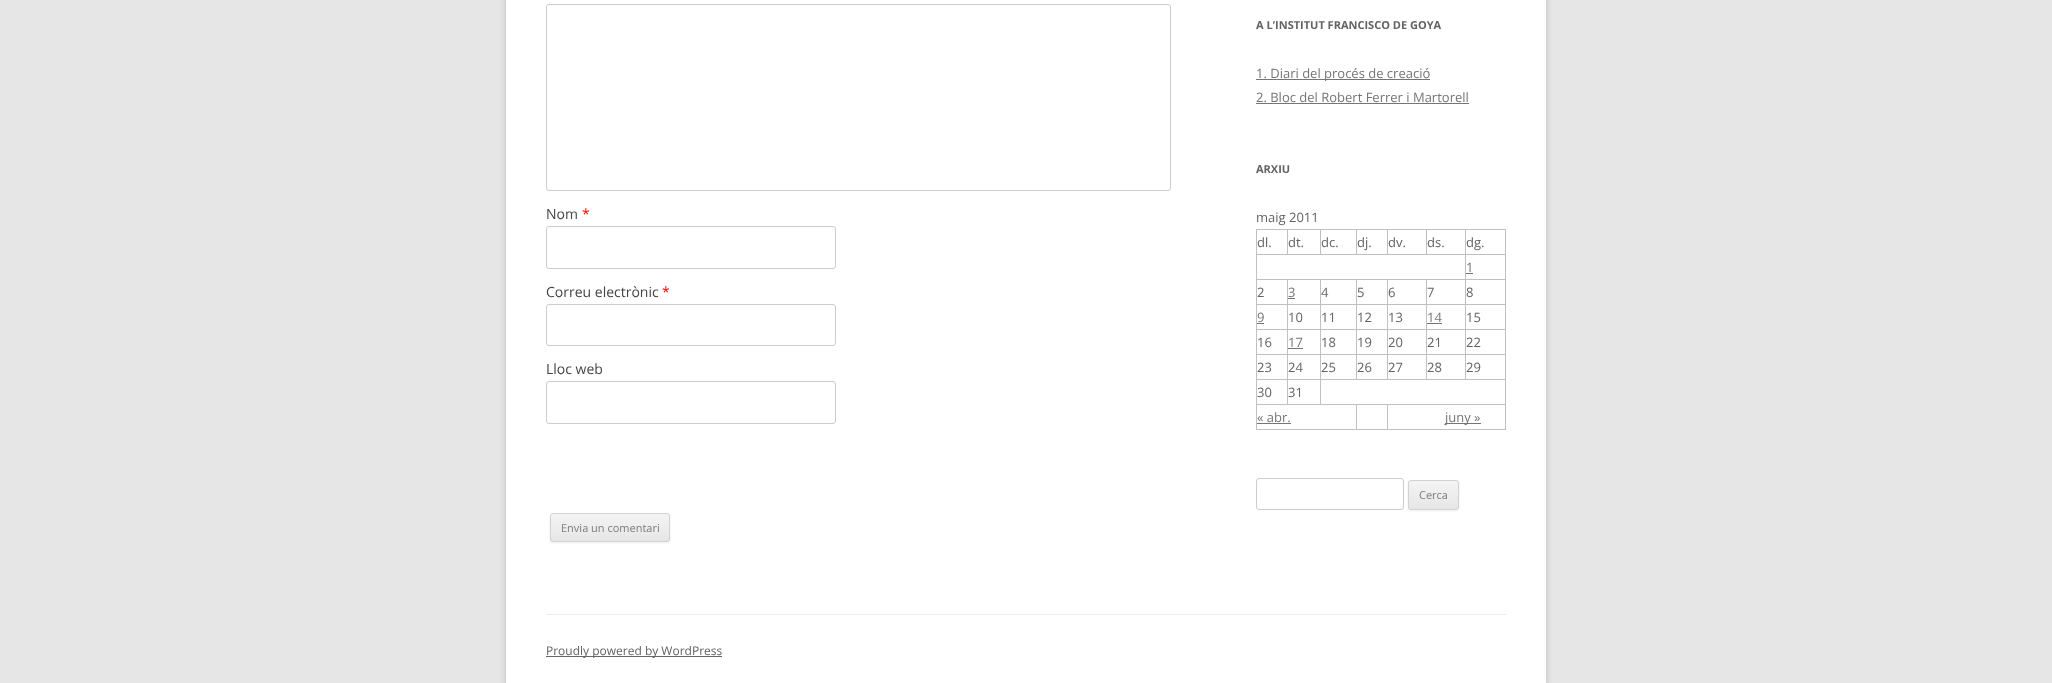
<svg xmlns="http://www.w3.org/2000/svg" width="2052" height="683">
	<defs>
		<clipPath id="clip1"><rect x="550" y="513" width="120" height="29" rx="3" /></clipPath>
		<linearGradient id="g1" gradientUnits="userSpaceOnUse" x1="610" y1="514" x2="610" y2="541"><stop offset="0" stop-color="#F4F4F4" /><stop offset="1" stop-color="#E6E6E6" /></linearGradient>
		<clipPath id="clip2"><rect x="1408" y="480" width="51" height="30" rx="3" /></clipPath>
		<linearGradient id="g2" gradientUnits="userSpaceOnUse" x1="1434" y1="481" x2="1434" y2="509"><stop offset="0" stop-color="#F4F4F4" /><stop offset="1" stop-color="#E6E6E6" /></linearGradient>
	</defs>
	<rect width="100%" height="100%" fill="#E6E6E6" />
	<rect x="506" y="-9" width="1040" height="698" fill="#646464" fill-opacity="0.3" filter="blur(3px)" />
	<rect x="506" y="0" width="1040" height="683" fill="#FFFFFF" />
	<rect x="546.5" y="4.5" width="624" height="186" rx="2.5" fill="none" stroke="#CCCCCC" />
	<text x="546" y="219" font-family="Open Sans" font-size="14" fill="#444444">Nom</text>
	<text x="582" y="219" font-family="Open Sans" font-size="14" fill="#FF0000">*</text>
	<rect x="546.5" y="226.5" width="289" height="42" rx="2.5" fill="none" stroke="#CCCCCC" />
	<text x="546" y="297" font-family="Open Sans" font-size="14" fill="#444444">Correu electrònic</text>
	<text x="662" y="297" font-family="Open Sans" font-size="14" fill="#FF0000">*</text>
	<rect x="546.5" y="304.5" width="289" height="41" rx="2.5" fill="none" stroke="#CCCCCC" />
	<text x="546" y="374" font-family="Open Sans" font-size="14" fill="#444444">Lloc web</text>
	<rect x="546.5" y="381.5" width="289" height="42" rx="2.5" fill="none" stroke="#CCCCCC" />
	<rect x="550" y="514" width="120" height="29" rx="3" fill="#404040" fill-opacity="0.1" filter="blur(1px)" />
	<g clip-path="url(#clip1)">
		<rect x="550" y="514" width="120" height="27" fill="url(#g1)" />
	</g>
	<rect x="550.5" y="513.5" width="119" height="28" rx="2.5" fill="none" stroke="#D2D2D2" />
	<text x="561" y="532" font-family="Open Sans" font-size="11" fill="#7C7C7C">Envia un comentari</text>
	<text x="1256" y="29" font-family="Open Sans" font-size="11" font-weight="700" fill="#636363">A L’INSTITUT FRANCISCO DE GOYA</text>
	<rect x="1256" y="79" width="174" height="1" fill="#757575" />
	<g font-family="Open Sans" font-size="13" fill="#757575">
		<text x="1256" y="78">1. Diari del procés de creació</text>
		<text x="1256" y="102">2. Bloc del Robert Ferrer i Martorell</text>
	</g>
	<rect x="1256" y="103" width="213" height="1" fill="#757575" />
	<text x="1256" y="173" font-family="Open Sans" font-size="11" font-weight="700" fill="#636363">ARXIU</text>
	<text x="1256" y="222" font-family="Open Sans" font-size="13" fill="#636363">maig 2011</text>
	<rect x="1465" y="229" width="41" height="1" fill="#C0C0C0" />
	<rect x="1465" y="254" width="41" height="1" fill="#C0C0C0" />
	<rect x="1465" y="279" width="41" height="1" fill="#C0C0C0" />
	<rect x="1465" y="304" width="41" height="1" fill="#C0C0C0" />
	<rect x="1465" y="329" width="41" height="1" fill="#C0C0C0" />
	<rect x="1465" y="354" width="41" height="1" fill="#C0C0C0" />
	<rect x="1320" y="379" width="186" height="1" fill="#C0C0C0" />
	<rect x="1465" y="354" width="1" height="26" fill="#C0C0C0" />
	<rect x="1426" y="354" width="40" height="1" fill="#C0C0C0" />
	<rect x="1465" y="329" width="1" height="26" fill="#C0C0C0" />
	<rect x="1426" y="329" width="40" height="1" fill="#C0C0C0" />
	<rect x="1465" y="304" width="1" height="26" fill="#C0C0C0" />
	<rect x="1426" y="304" width="40" height="1" fill="#C0C0C0" />
	<rect x="1465" y="279" width="1" height="26" fill="#C0C0C0" />
	<rect x="1426" y="279" width="40" height="1" fill="#C0C0C0" />
	<rect x="1465" y="254" width="1" height="26" fill="#C0C0C0" />
	<rect x="1256" y="254" width="210" height="1" fill="#C0C0C0" />
	<rect x="1465" y="229" width="1" height="26" fill="#C0C0C0" />
	<rect x="1426" y="229" width="40" height="1" fill="#C0C0C0" />
	<rect x="1426" y="229" width="1" height="26" fill="#C0C0C0" />
	<rect x="1387" y="229" width="40" height="1" fill="#C0C0C0" />
	<rect x="1387" y="229" width="1" height="26" fill="#C0C0C0" />
	<rect x="1356" y="229" width="32" height="1" fill="#C0C0C0" />
	<rect x="1356" y="229" width="1" height="26" fill="#C0C0C0" />
	<rect x="1320" y="229" width="37" height="1" fill="#C0C0C0" />
	<rect x="1320" y="229" width="1" height="26" fill="#C0C0C0" />
	<rect x="1287" y="229" width="34" height="1" fill="#C0C0C0" />
	<rect x="1287" y="229" width="1" height="26" fill="#C0C0C0" />
	<rect x="1256" y="229" width="32" height="1" fill="#C0C0C0" />
	<rect x="1426" y="354" width="1" height="26" fill="#C0C0C0" />
	<rect x="1387" y="354" width="40" height="1" fill="#C0C0C0" />
	<rect x="1426" y="329" width="1" height="26" fill="#C0C0C0" />
	<rect x="1387" y="329" width="40" height="1" fill="#C0C0C0" />
	<rect x="1426" y="304" width="1" height="26" fill="#C0C0C0" />
	<rect x="1387" y="304" width="40" height="1" fill="#C0C0C0" />
	<rect x="1426" y="279" width="1" height="26" fill="#C0C0C0" />
	<rect x="1387" y="279" width="40" height="1" fill="#C0C0C0" />
	<rect x="1387" y="354" width="1" height="26" fill="#C0C0C0" />
	<rect x="1356" y="354" width="32" height="1" fill="#C0C0C0" />
	<rect x="1387" y="329" width="1" height="26" fill="#C0C0C0" />
	<rect x="1356" y="329" width="32" height="1" fill="#C0C0C0" />
	<rect x="1387" y="304" width="1" height="26" fill="#C0C0C0" />
	<rect x="1356" y="304" width="32" height="1" fill="#C0C0C0" />
	<rect x="1387" y="279" width="1" height="26" fill="#C0C0C0" />
	<rect x="1356" y="279" width="32" height="1" fill="#C0C0C0" />
	<rect x="1356" y="354" width="1" height="26" fill="#C0C0C0" />
	<rect x="1320" y="354" width="37" height="1" fill="#C0C0C0" />
	<rect x="1356" y="329" width="1" height="26" fill="#C0C0C0" />
	<rect x="1320" y="329" width="37" height="1" fill="#C0C0C0" />
	<rect x="1356" y="304" width="1" height="26" fill="#C0C0C0" />
	<rect x="1320" y="304" width="37" height="1" fill="#C0C0C0" />
	<rect x="1356" y="279" width="1" height="26" fill="#C0C0C0" />
	<rect x="1320" y="279" width="37" height="1" fill="#C0C0C0" />
	<rect x="1505" y="379" width="1" height="26" fill="#C0C0C0" />
	<rect x="1320" y="404" width="186" height="1" fill="#C0C0C0" />
	<rect x="1320" y="379" width="1" height="26" fill="#C0C0C0" />
	<rect x="1287" y="379" width="34" height="1" fill="#C0C0C0" />
	<rect x="1320" y="354" width="1" height="26" fill="#C0C0C0" />
	<rect x="1287" y="354" width="34" height="1" fill="#C0C0C0" />
	<rect x="1320" y="329" width="1" height="26" fill="#C0C0C0" />
	<rect x="1287" y="329" width="34" height="1" fill="#C0C0C0" />
	<rect x="1320" y="304" width="1" height="26" fill="#C0C0C0" />
	<rect x="1287" y="304" width="34" height="1" fill="#C0C0C0" />
	<rect x="1320" y="279" width="1" height="26" fill="#C0C0C0" />
	<rect x="1287" y="279" width="34" height="1" fill="#C0C0C0" />
	<rect x="1287" y="404" width="34" height="1" fill="#C0C0C0" />
	<rect x="1287" y="379" width="1" height="26" fill="#C0C0C0" />
	<rect x="1256" y="379" width="32" height="1" fill="#C0C0C0" />
	<rect x="1287" y="354" width="1" height="26" fill="#C0C0C0" />
	<rect x="1256" y="354" width="32" height="1" fill="#C0C0C0" />
	<rect x="1287" y="329" width="1" height="26" fill="#C0C0C0" />
	<rect x="1256" y="329" width="32" height="1" fill="#C0C0C0" />
	<rect x="1287" y="304" width="1" height="26" fill="#C0C0C0" />
	<rect x="1256" y="304" width="32" height="1" fill="#C0C0C0" />
	<rect x="1287" y="279" width="1" height="26" fill="#C0C0C0" />
	<rect x="1256" y="279" width="32" height="1" fill="#C0C0C0" />
	<rect x="1256" y="404" width="32" height="1" fill="#C0C0C0" />
	<rect x="1256" y="379" width="1" height="26" fill="#C0C0C0" />
	<rect x="1256" y="354" width="1" height="26" fill="#C0C0C0" />
	<rect x="1256" y="329" width="1" height="26" fill="#C0C0C0" />
	<rect x="1256" y="304" width="1" height="26" fill="#C0C0C0" />
	<rect x="1256" y="279" width="1" height="26" fill="#C0C0C0" />
	<rect x="1256" y="254" width="1" height="26" fill="#C0C0C0" />
	<rect x="1256" y="229" width="1" height="26" fill="#C0C0C0" />
	<g font-family="Open Sans" font-size="13" fill="#636363">
		<text x="1257" y="247">dl.</text>
		<text x="1288" y="247">dt.</text>
		<text x="1321" y="247">dc.</text>
		<text x="1357" y="247">dj.</text>
		<text x="1388" y="247">dv.</text>
		<text x="1427" y="247">ds.</text>
	</g>
	<rect x="1505" y="354" width="1" height="26" fill="#C0C0C0" />
	<rect x="1505" y="329" width="1" height="26" fill="#C0C0C0" />
	<rect x="1505" y="304" width="1" height="26" fill="#C0C0C0" />
	<rect x="1505" y="279" width="1" height="26" fill="#C0C0C0" />
	<rect x="1505" y="254" width="1" height="26" fill="#C0C0C0" />
	<rect x="1505" y="229" width="1" height="26" fill="#C0C0C0" />
	<text x="1466" y="247" font-family="Open Sans" font-size="13" fill="#636363">dg.</text>
	<text x="1466" y="272" font-family="Open Sans" font-size="13" fill="#757575">1</text>
	<rect x="1466" y="273" width="7" height="1" fill="#757575" />
	<text x="1257" y="297" font-family="Open Sans" font-size="13" fill="#636363">2</text>
	<text x="1288" y="297" font-family="Open Sans" font-size="13" fill="#757575">3</text>
	<rect x="1288" y="298" width="7" height="1" fill="#757575" />
	<g font-family="Open Sans" font-size="13" fill="#636363">
		<text x="1321" y="297">4</text>
		<text x="1357" y="297">5</text>
		<text x="1388" y="297">6</text>
		<text x="1427" y="297">7</text>
		<text x="1466" y="297">8</text>
	</g>
	<text x="1257" y="322" font-family="Open Sans" font-size="13" fill="#757575">9</text>
	<rect x="1257" y="323" width="7" height="1" fill="#757575" />
	<g font-family="Open Sans" font-size="13" fill="#636363">
		<text x="1288" y="322">10</text>
		<text x="1321" y="322">11</text>
		<text x="1357" y="322">12</text>
		<text x="1388" y="322">13</text>
	</g>
	<text x="1427" y="322" font-family="Open Sans" font-size="13" fill="#757575">14</text>
	<rect x="1427" y="323" width="15" height="1" fill="#757575" />
	<g font-family="Open Sans" font-size="13" fill="#636363">
		<text x="1466" y="322">15</text>
		<text x="1257" y="347">16</text>
	</g>
	<text x="1288" y="347" font-family="Open Sans" font-size="13" fill="#757575">17</text>
	<rect x="1288" y="348" width="15" height="1" fill="#757575" />
	<g font-family="Open Sans" font-size="13" fill="#636363">
		<text x="1321" y="347">18</text>
		<text x="1357" y="347">19</text>
		<text x="1388" y="347">20</text>
		<text x="1427" y="347">21</text>
		<text x="1466" y="347">22</text>
		<text x="1257" y="372">23</text>
		<text x="1288" y="372">24</text>
		<text x="1321" y="372">25</text>
		<text x="1357" y="372">26</text>
		<text x="1388" y="372">27</text>
		<text x="1427" y="372">28</text>
		<text x="1466" y="372">29</text>
		<text x="1257" y="397">30</text>
		<text x="1288" y="397">31</text>
	</g>
	<rect x="1505" y="404" width="1" height="26" fill="#C0C0C0" />
	<rect x="1387" y="429" width="119" height="1" fill="#C0C0C0" />
	<rect x="1387" y="404" width="1" height="26" fill="#C0C0C0" />
	<rect x="1356" y="429" width="32" height="1" fill="#C0C0C0" />
	<rect x="1356" y="404" width="1" height="26" fill="#C0C0C0" />
	<rect x="1256" y="429" width="101" height="1" fill="#C0C0C0" />
	<rect x="1256" y="404" width="1" height="26" fill="#C0C0C0" />
	<text x="1257" y="422" font-family="Open Sans" font-size="13" fill="#757575">« abr.</text>
	<rect x="1257" y="423" width="34" height="1" fill="#757575" />
	<rect x="1445" y="423" width="36" height="1" fill="#757575" />
	<text x="1445" y="422" font-family="Open Sans" font-size="13" fill="#757575">juny »</text>
	<rect x="1256.5" y="478.5" width="147" height="31" rx="2.5" fill="none" stroke="#CCCCCC" />
	<rect x="1408" y="481" width="51" height="30" rx="3" fill="#404040" fill-opacity="0.1" filter="blur(1px)" />
	<g clip-path="url(#clip2)">
		<rect x="1408" y="481" width="51" height="28" fill="url(#g2)" />
	</g>
	<rect x="1408.5" y="480.5" width="50" height="29" rx="2.5" fill="none" stroke="#D2D2D2" />
	<text x="1419" y="499" font-family="Open Sans" font-size="11" fill="#7C7C7C">Cerca</text>
	<rect x="546" y="614" width="960" height="1" fill="#EDEDED" />
	<rect x="546" y="656" width="176" height="1" fill="#686868" />
	<text x="546" y="655" font-family="Open Sans" font-size="12" fill="#636363">Proudly powered by WordPress</text>
</svg>
